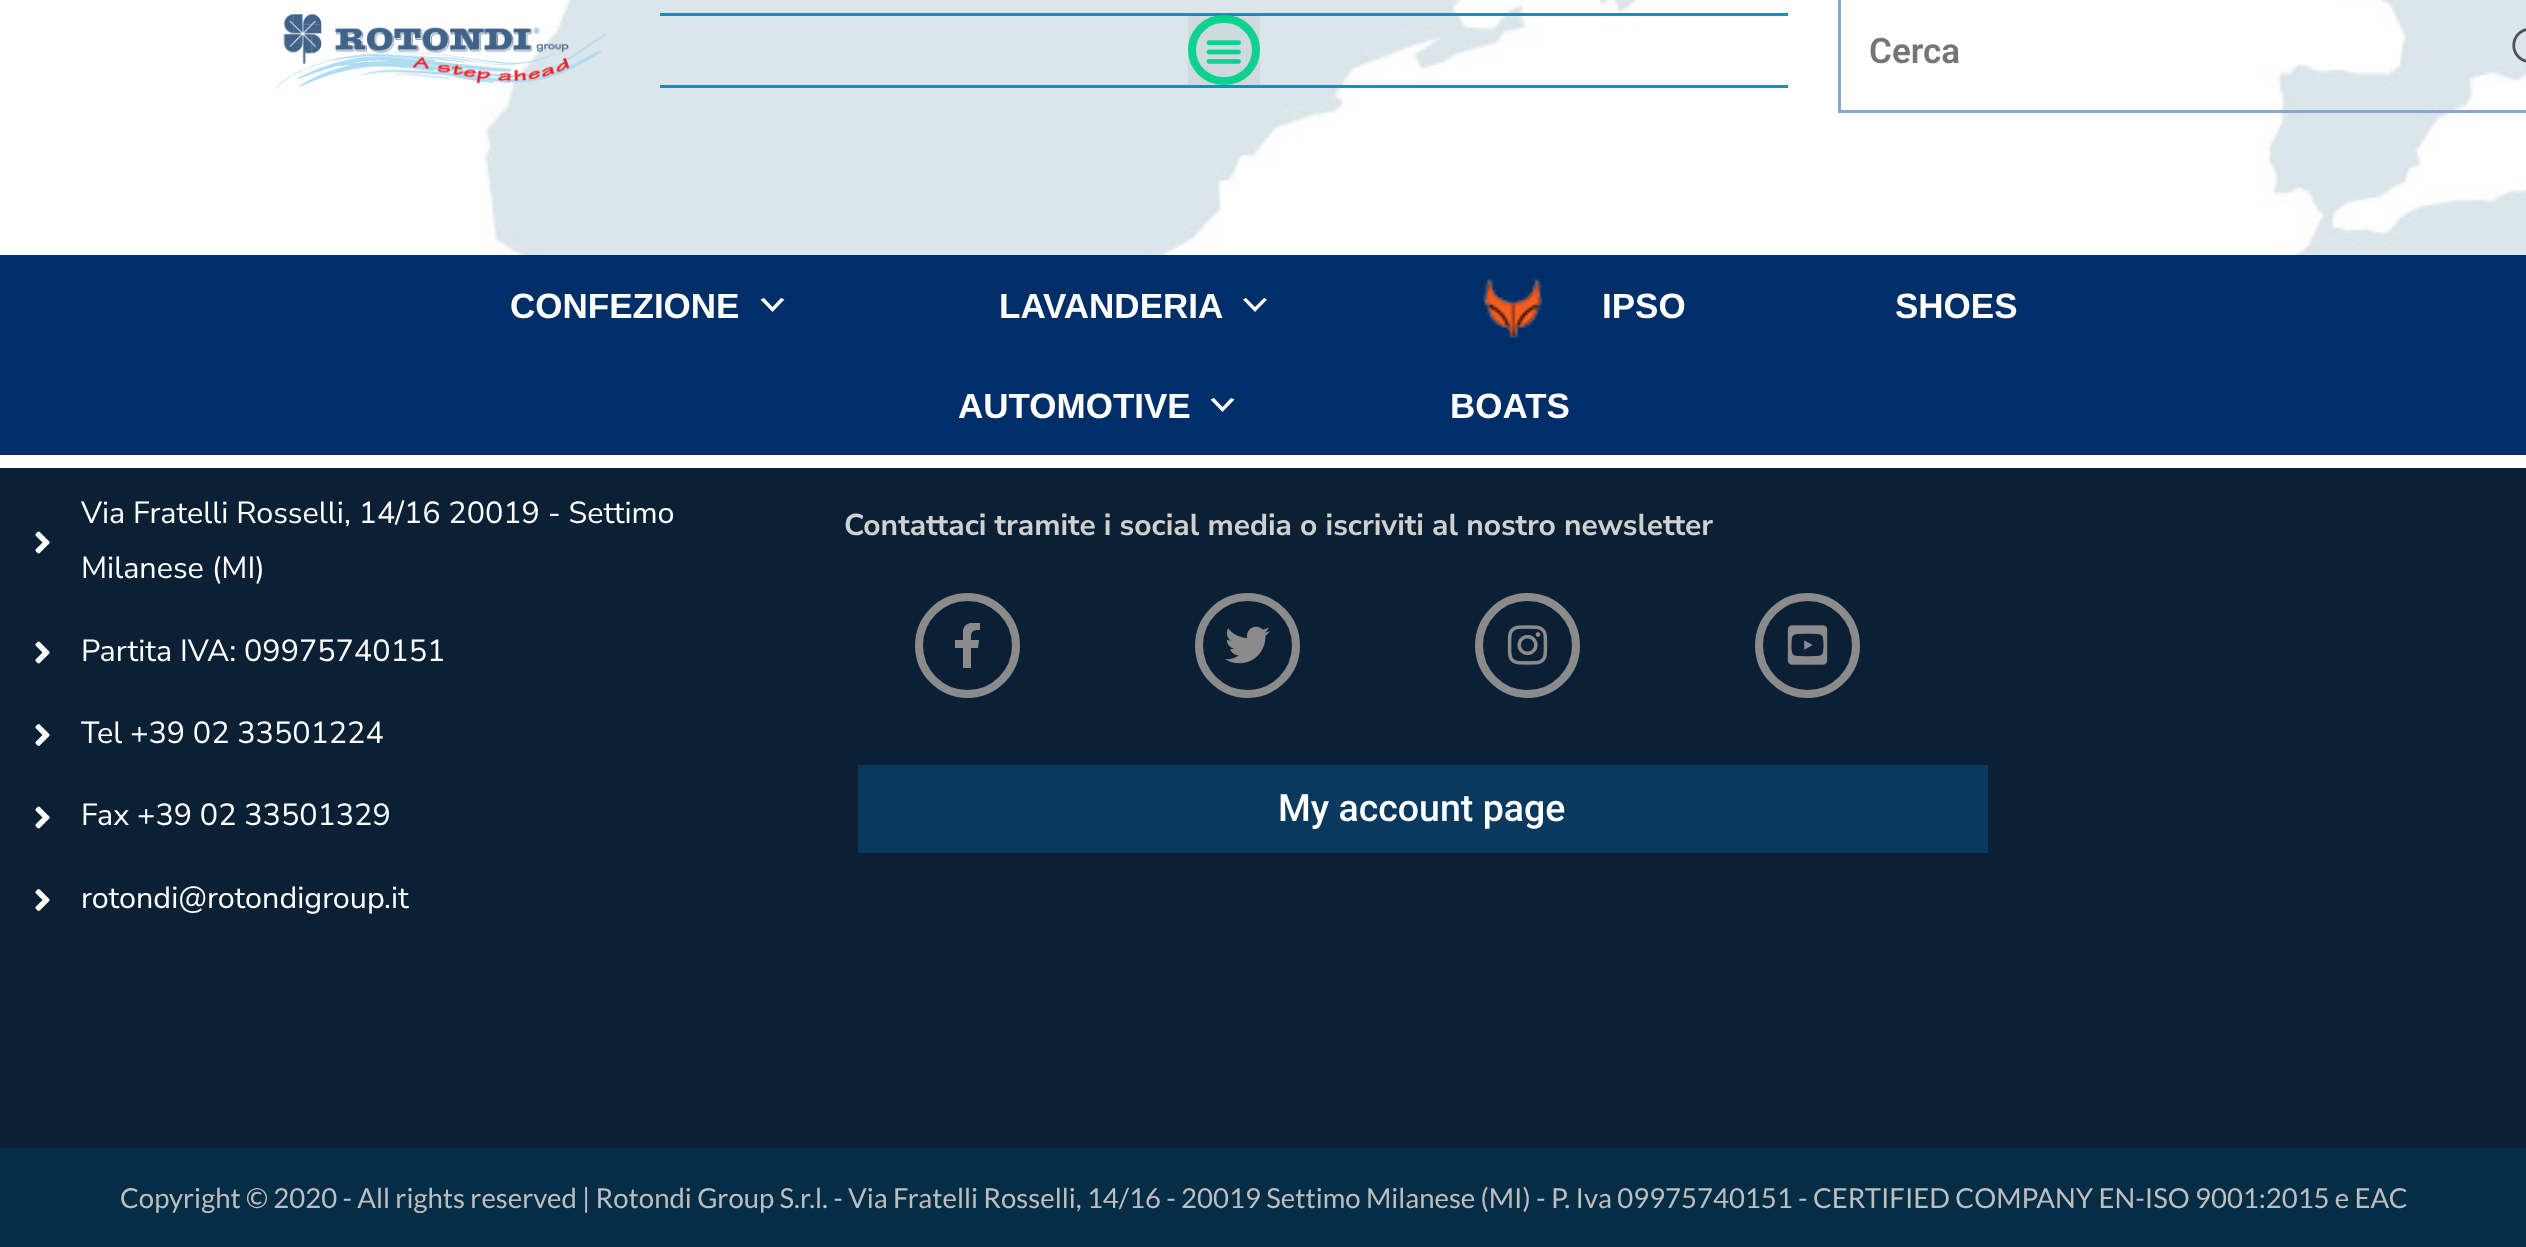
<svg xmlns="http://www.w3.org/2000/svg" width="2526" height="1247">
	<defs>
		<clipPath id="clip1"><rect x="945" y="623" width="45" height="45" /></clipPath>
	</defs>
	<rect width="100%" height="100%" fill="#0B2035" />
	<rect x="0" y="0" width="484" height="255" fill="#FFFFFF" />
	<image x="484" y="0" width="2042" height="255" href="assets/img1.png" />
	<image x="275" y="14" width="332" height="75" href="assets/img2.png" />
	<rect x="660" y="13" width="1128" height="3" fill="#0099B6" />
	<rect x="660" y="85" width="1128" height="3" fill="#0099B6" />
	<rect x="1188" y="15" width="72" height="70" fill="#000000" fill-opacity="0.05" />
	<rect x="1192" y="19" width="64" height="62" rx="31" fill="none" stroke="#06D18C" stroke-opacity="0.97" stroke-width="8" />
	<image x="1206" y="40" width="35" height="24" href="assets/img3.png" />
	<rect x="1839.5" y="-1.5" width="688" height="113" fill="none" stroke="#88A7CE" stroke-width="3" />
	<text x="1869" y="63" font-family="Roboto" font-size="35" font-weight="600" fill="#757575">Cerca</text>
	<image x="2512" y="28" width="14" height="35" href="assets/img4.png" />
	<rect x="0" y="255" width="2526" height="200" fill="#002E68" />
	<text x="510" y="318" font-family="Liberation Sans" font-size="35" font-weight="700" fill="#FFFFFF">CONFEZIONE</text>
	<path d="M764 298L772.5 307L781 298L784.5 299.5L772.5 312L760.5 299.5Z" fill="#FFFFFF" />
	<text x="999" y="318" font-family="Liberation Sans" font-size="35" font-weight="700" fill="#FFFFFF">LAVANDERIA</text>
	<path d="M1246 298L1255 307L1264 298L1267 299.5L1255 312L1243 299.5Z" fill="#FFFFFF" />
	<image x="1482" y="278" width="61" height="60" href="assets/img5.png" />
	<g font-family="Liberation Sans" font-size="35" font-weight="700" fill="#FFFFFF">
		<text x="1602" y="318">IPSO</text>
		<text x="1895" y="318">SHOES</text>
		<text x="958" y="418">AUTOMOTIVE</text>
	</g>
	<path d="M1214 398L1222.5 407L1231 398L1234.5 399.5L1222.5 412L1210.5 399.5Z" fill="#FFFFFF" />
	<text x="1450" y="418" font-family="Liberation Sans" font-size="35" font-weight="700" fill="#FFFFFF">BOATS</text>
	<rect x="0" y="455" width="2526" height="13" fill="#FFFFFF" />
	<image x="35" y="531" width="15" height="23" href="assets/img6.png" />
	<g font-family="Nunito Sans" font-size="30.5" fill="#FFFFFF">
		<text x="81" y="523">Via Fratelli Rosselli, 14/16 20019 - Settimo</text>
		<text x="81" y="578">Milanese (MI)</text>
	</g>
	<image x="35" y="641" width="15" height="23" href="assets/img6.png" />
	<text x="81" y="661" font-family="Nunito Sans" font-size="30.5" fill="#FFFFFF">Partita IVA: 09975740151</text>
	<image x="35" y="724" width="15" height="22" href="assets/img7.png" />
	<text x="81" y="743" font-family="Nunito Sans" font-size="30.5" fill="#FFFFFF">Tel +39 02 33501224</text>
	<image x="35" y="806" width="15" height="23" href="assets/img6.png" />
	<text x="81" y="825" font-family="Nunito Sans" font-size="30.5" fill="#FFFFFF">Fax +39 02 33501329</text>
	<image x="35" y="889" width="15" height="22" href="assets/img7.png" />
	<text x="81" y="908" font-family="Nunito Sans" font-size="30.5" fill="#FFFFFF">rotondi@rotondigroup.it</text>
	<text x="844" y="535" font-family="Nunito Sans" font-size="30" font-weight="700" fill="#D0D0D0">Contattaci tramite i social media o iscriviti al nostro newsletter</text>
	<circle cx="967.5" cy="645.5" r="48.5" fill="none" stroke="#8B8B8B" stroke-width="8" />
	<g clip-path="url(#clip1)">
		<path d="M978 648L979 640H971C971 632 971 630 980 630V623C973 622 964 622 963 631V640H955V648H963V668H971V648Z" fill="#8B8B8B" />
	</g>
	<circle cx="1247.5" cy="645.5" r="48.5" fill="none" stroke="#8B8B8B" stroke-width="8" />
	<image x="1225" y="626" width="45" height="38" href="assets/img8.png" />
	<circle cx="1527.5" cy="645.5" r="48.5" fill="none" stroke="#8B8B8B" stroke-width="8" />
	<image x="1507" y="625" width="41" height="40" href="assets/img9.png" />
	<circle cx="1807.5" cy="645.5" r="48.5" fill="none" stroke="#8B8B8B" stroke-width="8" />
	<image x="1787" y="625" width="41" height="40" href="assets/img10.png" />
	<rect x="858" y="765" width="1130" height="88" fill="#09395F" />
	<text x="1278" y="821" font-family="Roboto" font-size="37.5" font-weight="500" fill="#FFFFFF">My account page</text>
	<rect x="0" y="1148" width="2526" height="99" fill="#052D45" />
	<text x="120" y="1208" font-family="Lato" font-size="27.5" fill="#BEBEBE">Copyright © 2020 - All rights reserved | Rotondi Group S.r.l. - Via Fratelli Rosselli, 14/16 - 20019 Settimo Milanese (MI) - P. Iva 09975740151 - CERTIFIED COMPANY EN-ISO 9001:2015 e EAC</text>
</svg>
